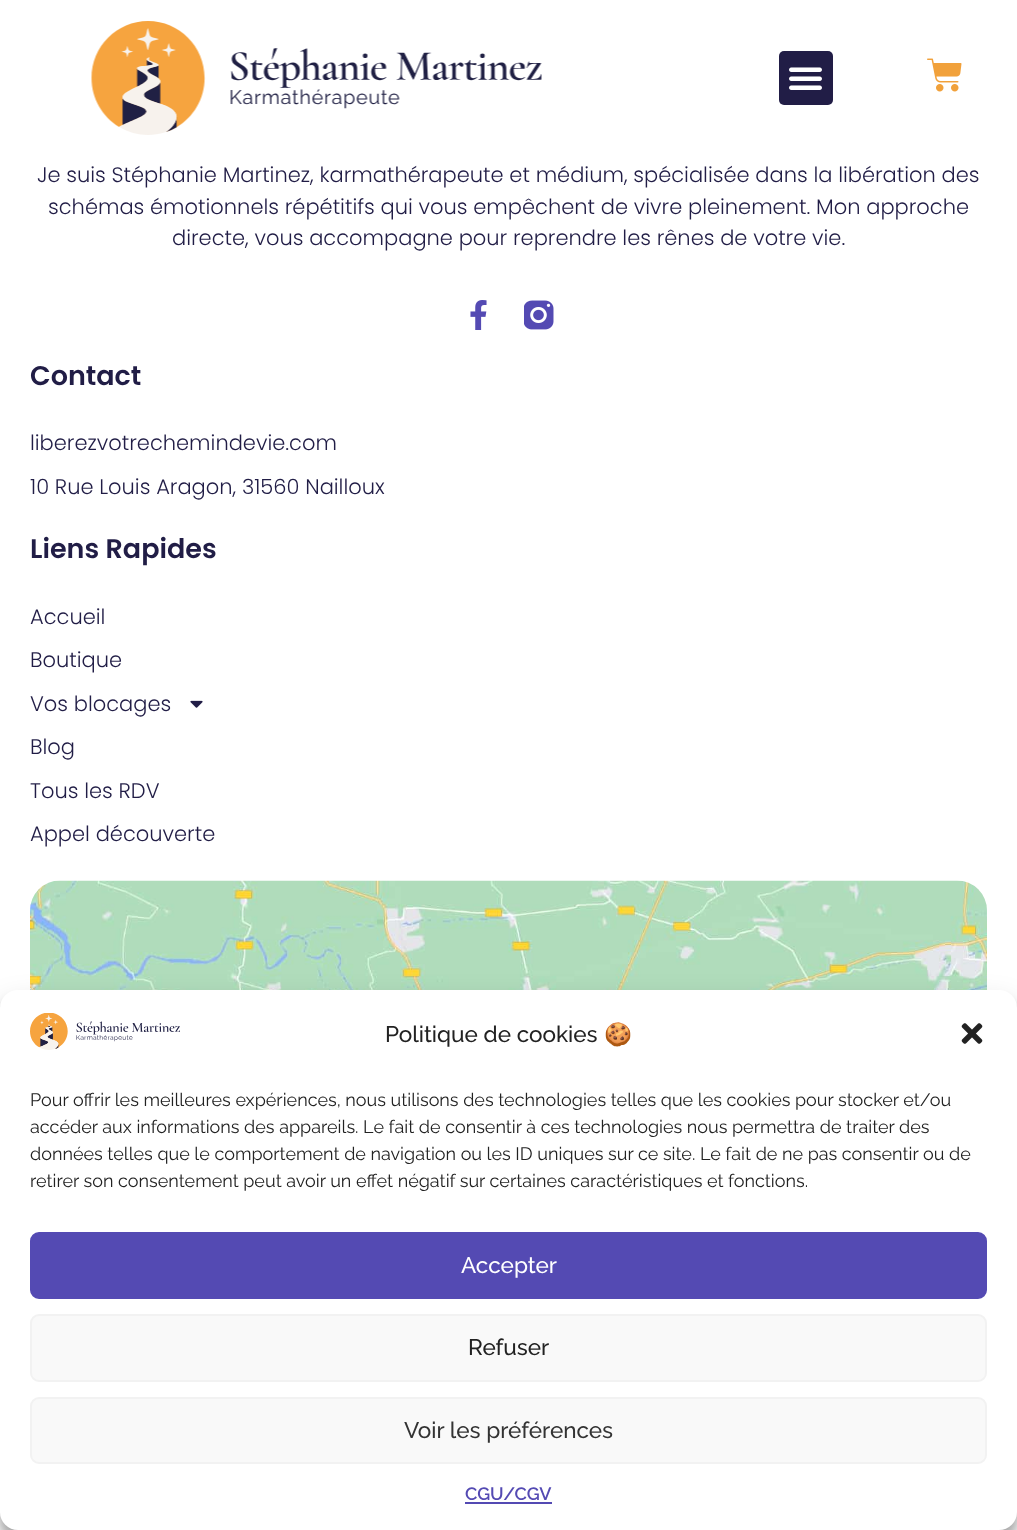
<svg xmlns="http://www.w3.org/2000/svg" width="1017" height="1530">
	<rect width="100%" height="100%" fill="#FFFFFF" />
	<image x="91" y="21" width="451" height="114" href="assets/img1.png" />
	<rect x="779" y="51" width="54" height="54" rx="5" fill="#211D46" />
	<image x="789" y="67" width="33" height="23" href="assets/img2.png" />
	<image x="927" y="58" width="35" height="34" href="assets/img3.png" />
	<g font-family="Poppins" font-size="21" font-weight="300" fill="#211D46">
		<text x="37" y="182">Je suis Stéphanie Martinez, karmathérapeute et médium, spécialisée dans la libération des</text>
		<text x="48" y="214">schémas émotionnels répétitifs qui vous empêchent de vivre pleinement. Mon approche</text>
		<text x="172" y="245">directe, vous accompagne pour reprendre les rênes de votre vie.</text>
	</g>
	<image x="470" y="300" width="17" height="30" href="assets/img4.png" />
	<image x="524" y="300" width="30" height="30" href="assets/img5.png" />
	<text x="30" y="385" font-family="Poppins" font-size="27" font-weight="600" fill="#211D46">Contact</text>
	<g font-family="Poppins" font-size="21" font-weight="300" fill="#211D46">
		<text x="30" y="450">liberezvotrechemindevie.com</text>
		<text x="30" y="494">10 Rue Louis Aragon, 31560 Nailloux</text>
	</g>
	<text x="30" y="558" font-family="Poppins" font-size="27" font-weight="600" fill="#211D46">Liens Rapides</text>
	<g font-family="Poppins" font-size="21" font-weight="300" fill="#211D46">
		<text x="30" y="624">Accueil</text>
		<text x="30" y="667">Boutique</text>
		<text x="30" y="711">Vos blocages</text>
	</g>
	<image x="190" y="700" width="13" height="8" href="assets/img6.png" />
	<g font-family="Poppins" font-size="21" font-weight="300" fill="#211D46">
		<text x="30" y="754">Blog</text>
		<text x="30" y="798">Tous les RDV</text>
		<text x="30" y="841">Appel découverte</text>
	</g>
	<image x="30" y="880" width="957" height="110" href="assets/img7.png" />
	<rect x="0" y="999" width="1017" height="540" rx="18" fill="#000000" fill-opacity="0.23" filter="blur(4.5px)" />
	<rect x="0" y="1005" width="1017" height="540" rx="18" fill="#000000" fill-opacity="0.19" filter="blur(15px)" />
	<rect x="0" y="990" width="1017" height="540" rx="18" fill="#FFFFFF" />
	<image x="30" y="1013" width="150" height="37" href="assets/img8.png" />
	<text x="385" y="1042" font-family="Raleway" font-size="22.5" font-weight="500" fill="#222222">Politique de cookies</text>
	<text x="604" y="1042" font-family="Noto Color Emoji" font-size="22.5" fill="#222222">🍪</text>
	<image x="961" y="1023" width="22" height="21" href="assets/img9.png" />
	<g font-family="Raleway" font-size="18" fill="#222222">
		<text x="30" y="1106">Pour offrir les meilleures expériences, nous utilisons des technologies telles que les cookies pour stocker et/ou</text>
		<text x="30" y="1133">accéder aux informations des appareils. Le fait de consentir à ces technologies nous permettra de traiter des</text>
		<text x="30" y="1160">données telles que le comportement de navigation ou les ID uniques sur ce site. Le fait de ne pas consentir ou de</text>
		<text x="30" y="1187">retirer son consentement peut avoir un effet négatif sur certaines caractéristiques et fonctions.</text>
	</g>
	<rect x="31" y="1233" width="955" height="65" rx="8" fill="#544AB3" stroke="#544AB3" stroke-width="2" />
	<text x="461" y="1273" font-family="Raleway" font-size="22.5" font-weight="500" fill="#FFFFFF">Accepter</text>
	<rect x="31" y="1315" width="955" height="66" rx="8" fill="#F9F9F9" stroke="#F2F2F2" stroke-width="2" />
	<text x="468" y="1355" font-family="Raleway" font-size="22.5" font-weight="500" fill="#222222">Refuser</text>
	<rect x="31" y="1398" width="955" height="65" rx="8" fill="#F9F9F9" stroke="#F2F2F2" stroke-width="2" />
	<text x="404" y="1438" font-family="Raleway" font-size="22.5" font-weight="500" fill="#333333">Voir les préférences</text>
	<text x="465" y="1500" font-family="Raleway" font-size="18" font-weight="600" fill="#544AB3">CGU/CGV</text>
	<rect x="465" y="1502" width="87" height="2" fill="#544AB3" />
</svg>
